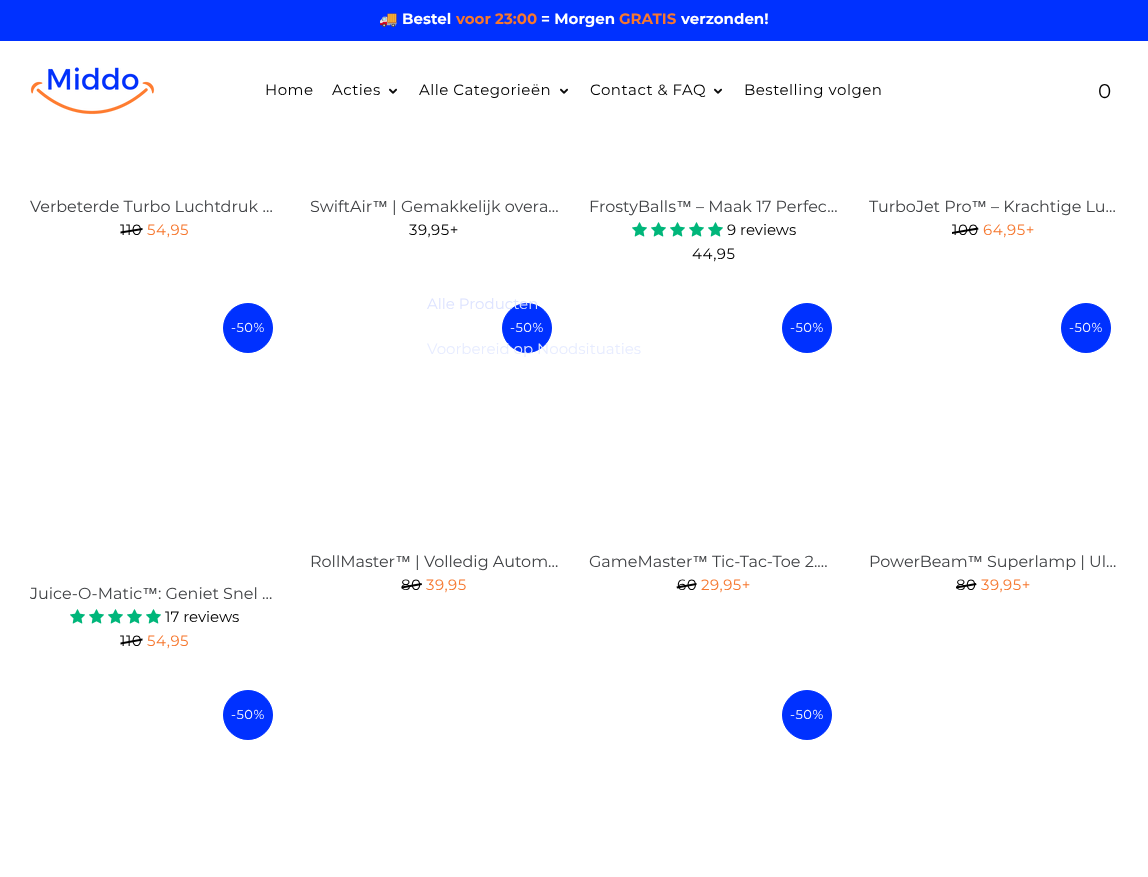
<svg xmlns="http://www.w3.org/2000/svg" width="1148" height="877">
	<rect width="100%" height="100%" fill="#FFFFFF" />
	<rect x="0" y="0" width="1148" height="41" fill="#0031FF" />
	<text x="379" y="24" font-family="Noto Color Emoji" font-size="15" font-weight="700" fill="#FFFFFF">🚚</text>
	<text x="402" y="24" font-family="Montserrat" font-size="15" font-weight="700" fill="#FFFFFF">Bestel</text>
	<text x="456" y="24" font-family="Montserrat" font-size="15" font-weight="700" fill="#F6772E">voor 23:00</text>
	<text x="541" y="24" font-family="Montserrat" font-size="15" font-weight="700" fill="#FFFFFF">= Morgen</text>
	<text x="619" y="24" font-family="Montserrat" font-size="15" font-weight="700" fill="#F6772E">GRATIS</text>
	<text x="681" y="24" font-family="Montserrat" font-size="15" font-weight="700" fill="#FFFFFF">verzonden!</text>
	<image x="30" y="67" width="125" height="48" href="assets/img1.png" />
	<g font-family="Montserrat" font-size="15" letter-spacing="0.5" fill="#000000">
		<text x="265" y="95">Home</text>
		<text x="332" y="95">Acties</text>
	</g>
	<image x="389" y="88" width="8" height="6" href="assets/img2.png" />
	<text x="419" y="95" font-family="Montserrat" font-size="15" letter-spacing="0.5" fill="#000000">Alle Categorieën</text>
	<image x="560" y="88" width="8" height="6" href="assets/img2.png" />
	<circle cx="527" cy="328" r="24.5" fill="#0031FF" stroke="#0031FF" />
	<text x="427" y="309" font-family="Montserrat" font-size="15" fill="#DDE3FF">Alle Producten</text>
	<text x="427" y="354" font-family="Montserrat" font-size="15" fill="#E7ECFF">Voorbereid op Noodsituaties</text>
	<text x="590" y="95" font-family="Montserrat" font-size="15" letter-spacing="0.5" fill="#000000">Contact &amp; FAQ</text>
	<image x="714" y="88" width="8" height="6" href="assets/img2.png" />
	<text x="744" y="95" font-family="Montserrat" font-size="15" letter-spacing="0.5" fill="#000000">Bestelling volgen</text>
	<text x="1098" y="98" font-family="Montserrat" font-size="20" fill="#000000">0</text>
	<text x="30" y="212" font-family="Montserrat" font-size="16" fill="#404245">Verbeterde Turbo Luchtdruk …</text>
	<text x="120" y="235" font-family="Montserrat" font-size="15" letter-spacing="0.5" fill="#000000">110</text>
	<path d="M120.5 231.5L142.5 228V230L120.5 233.5Z" fill="#000000" />
	<text x="147" y="235" font-family="Montserrat" font-size="15" letter-spacing="0.5" fill="#F6772E">54,95</text>
	<text x="310" y="212" font-family="Montserrat" font-size="16" fill="#404245">SwiftAir</text>
	<text x="372" y="212" font-family="Liberation Sans" font-size="16" fill="#404245">™</text>
	<text x="392" y="212" font-family="Montserrat" font-size="16" fill="#404245">| Gemakkelijk overa…</text>
	<text x="409" y="235" font-family="Montserrat" font-size="15" letter-spacing="0.5" fill="#000000">39,95+</text>
	<text x="589" y="212" font-family="Montserrat" font-size="16" fill="#404245">FrostyBalls</text>
	<text x="676" y="212" font-family="Liberation Sans" font-size="16" fill="#404245">™</text>
	<text x="696" y="212" font-family="Montserrat" font-size="16" fill="#404245">– Maak 17 Perfec…</text>
	<image x="632" y="222" width="15" height="15" href="assets/img3.png" />
	<image x="651" y="222" width="15" height="15" href="assets/img3.png" />
	<image x="670" y="222" width="15" height="15" href="assets/img3.png" />
	<image x="689" y="222" width="15" height="15" href="assets/img3.png" />
	<image x="708" y="222" width="15" height="15" href="assets/img3.png" />
	<text x="727" y="235" font-family="Montserrat" font-size="15" fill="#000000">9 reviews</text>
	<text x="692" y="259" font-family="Montserrat" font-size="15" letter-spacing="0.5" fill="#000000">44,95</text>
	<text x="869" y="212" font-family="Montserrat" font-size="16" fill="#404245">TurboJet Pro</text>
	<text x="971" y="212" font-family="Liberation Sans" font-size="16" fill="#404245">™</text>
	<text x="991" y="212" font-family="Montserrat" font-size="16" fill="#404245">– Krachtige Lu…</text>
	<text x="952" y="235" font-family="Montserrat" font-size="15" letter-spacing="0.5" fill="#000000">100</text>
	<path d="M952 232L978 227.5L978.5 229.5L952 234Z" fill="#000000" />
	<text x="983" y="235" font-family="Montserrat" font-size="15" letter-spacing="0.5" fill="#F6772E">64,95+</text>
	<circle cx="248" cy="328" r="24.5" fill="#0031FF" stroke="#0031FF" />
	<text x="231" y="332" font-family="Montserrat" font-size="13" letter-spacing="0.5" fill="#FFFFFF">-50%</text>
	<text x="30" y="599" font-family="Montserrat" font-size="16" fill="#404245">Juice-O-Matic</text>
	<text x="142" y="599" font-family="Liberation Sans" font-size="16" fill="#404245">™</text>
	<text x="158" y="599" font-family="Montserrat" font-size="16" fill="#404245">: Geniet Snel …</text>
	<image x="70" y="609" width="15" height="15" href="assets/img3.png" />
	<image x="89" y="609" width="15" height="15" href="assets/img3.png" />
	<image x="108" y="609" width="15" height="15" href="assets/img3.png" />
	<image x="127" y="609" width="15" height="15" href="assets/img3.png" />
	<image x="146" y="609" width="15" height="15" href="assets/img3.png" />
	<text x="165" y="622" font-family="Montserrat" font-size="15" fill="#000000">17 reviews</text>
	<text x="120" y="646" font-family="Montserrat" font-size="15" letter-spacing="0.5" fill="#000000">110</text>
	<path d="M120.5 642.5L142.5 638.5V640.5L120.5 644.5Z" fill="#000000" />
	<text x="147" y="646" font-family="Montserrat" font-size="15" letter-spacing="0.5" fill="#F6772E">54,95</text>
	<text x="510" y="332" font-family="Montserrat" font-size="13" letter-spacing="0.5" fill="#FFFFFF">-50%</text>
	<text x="310" y="567" font-family="Montserrat" font-size="16" fill="#404245">RollMaster</text>
	<text x="395" y="567" font-family="Liberation Sans" font-size="16" fill="#404245">™</text>
	<text x="415" y="567" font-family="Montserrat" font-size="16" fill="#404245">| Volledig Autom…</text>
	<text x="401" y="590" font-family="Montserrat" font-size="15" letter-spacing="0.5" fill="#000000">80</text>
	<path d="M401.5 586.5L421.5 583L422 585L401.5 588.5Z" fill="#000000" />
	<text x="426" y="590" font-family="Montserrat" font-size="15" letter-spacing="0.5" fill="#F6772E">39,95</text>
	<circle cx="807" cy="328" r="24.5" fill="#0031FF" stroke="#0031FF" />
	<text x="790" y="332" font-family="Montserrat" font-size="13" letter-spacing="0.5" fill="#FFFFFF">-50%</text>
	<text x="589" y="567" font-family="Montserrat" font-size="16" fill="#404245">GameMaster</text>
	<text x="692" y="567" font-family="Liberation Sans" font-size="16" fill="#404245">™</text>
	<text x="712" y="567" font-family="Montserrat" font-size="16" fill="#404245">Tic-Tac-Toe 2.…</text>
	<text x="677" y="590" font-family="Montserrat" font-size="15" letter-spacing="0.5" fill="#000000">60</text>
	<path d="M676.5 586.5L696.5 583V585L677 588.5Z" fill="#000000" />
	<text x="701" y="590" font-family="Montserrat" font-size="15" letter-spacing="0.5" fill="#F6772E">29,95+</text>
	<circle cx="1086" cy="328" r="24.5" fill="#0031FF" stroke="#0031FF" />
	<text x="1069" y="332" font-family="Montserrat" font-size="13" letter-spacing="0.5" fill="#FFFFFF">-50%</text>
	<text x="869" y="567" font-family="Montserrat" font-size="16" fill="#404245">PowerBeam</text>
	<text x="967" y="567" font-family="Liberation Sans" font-size="16" fill="#404245">™</text>
	<text x="987" y="567" font-family="Montserrat" font-size="16" fill="#404245">Superlamp | Ul…</text>
	<text x="956" y="590" font-family="Montserrat" font-size="15" letter-spacing="0.5" fill="#000000">80</text>
	<path d="M956 586.5L976 583L976.5 585L956 588.5Z" fill="#000000" />
	<text x="981" y="590" font-family="Montserrat" font-size="15" letter-spacing="0.5" fill="#F6772E">39,95+</text>
	<circle cx="248" cy="715" r="24.5" fill="#0031FF" stroke="#0031FF" />
	<text x="231" y="719" font-family="Montserrat" font-size="13" letter-spacing="0.5" fill="#FFFFFF">-50%</text>
	<circle cx="807" cy="715" r="24.5" fill="#0031FF" stroke="#0031FF" />
	<text x="790" y="719" font-family="Montserrat" font-size="13" letter-spacing="0.5" fill="#FFFFFF">-50%</text>
</svg>
